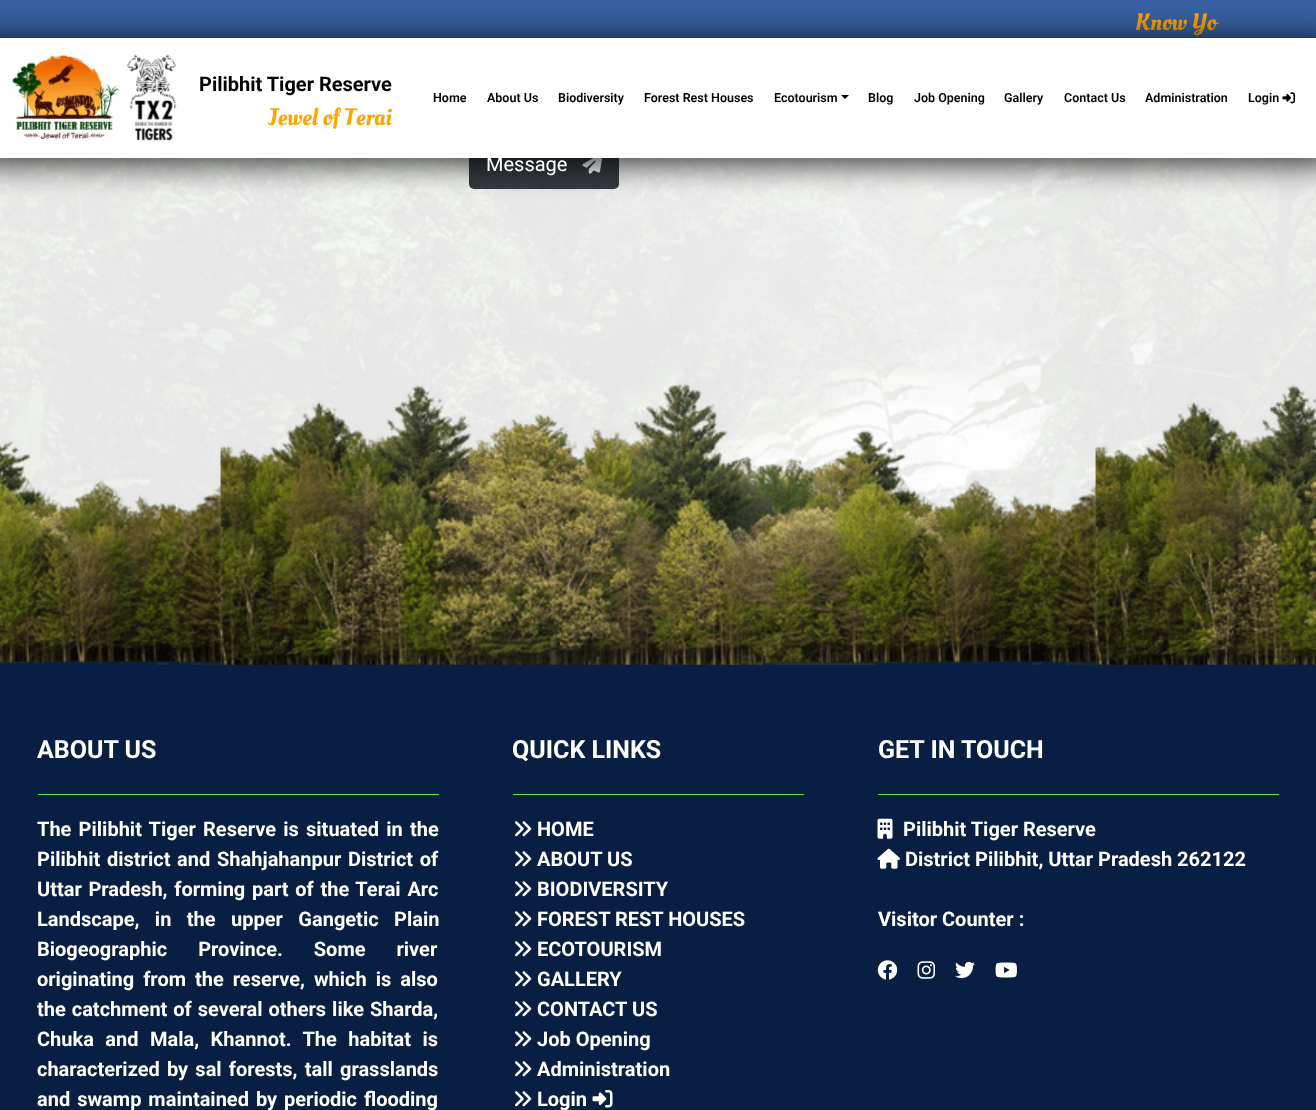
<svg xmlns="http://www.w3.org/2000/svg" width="1316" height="1110">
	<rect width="100%" height="100%" fill="#FFFFFF" />
	<image x="0" y="158" width="1316" height="496" href="assets/img1.png" />
	<rect x="0" y="0" width="1316" height="38" fill="#3860A1" />
	<text x="1135" y="30" font-family="Oleo Script" font-size="23.75" fill="#FFA500">Know Yo</text>
	<rect x="469" y="141" width="150" height="48" rx="5" fill="#343A40" />
	<image x="582" y="158" width="20" height="16" href="assets/img5.png" />
	<rect x="-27" y="38" width="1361" height="127" fill="#000000" fill-opacity="0.75" filter="blur(15.5px)" />
	<rect x="0" y="38" width="1316" height="120" fill="#FFFFFF" />
	<image x="12" y="54" width="107" height="86" href="assets/img2.png" />
	<image x="127" y="54" width="50" height="87" href="assets/img3.png" />
	<text x="199" y="91" font-family="Roboto" font-size="20" font-weight="700" fill="#000000">Pilibhit Tiger Reserve</text>
	<text x="268" y="125" font-family="Oleo Script" font-size="23.75" fill="#FFA500">Jewel of Terai</text>
	<g font-family="Roboto" font-size="12.5" font-weight="600" fill="#000000">
		<text x="433" y="102">Home</text>
		<text x="487" y="102">About Us</text>
		<text x="558" y="102">Biodiversity</text>
		<text x="644" y="102">Forest Rest Houses</text>
		<text x="774" y="102">Ecotourism</text>
	</g>
	<path d="M841 95H849L845 99Z" fill="#000000" />
	<g font-family="Roboto" font-size="12.5" font-weight="600" fill="#000000">
		<text x="868" y="102">Blog</text>
		<text x="914" y="102">Job Opening</text>
		<text x="1004" y="102">Gallery</text>
		<text x="1064" y="102">Contact Us</text>
		<text x="1145" y="102">Administration</text>
		<text x="1248" y="102">Login</text>
	</g>
	<image x="1282" y="92" width="13" height="12" href="assets/img4.png" />
	<text x="486" y="171" font-family="Roboto" font-size="20" fill="#FFFFFF">Message</text>
	<rect x="0" y="654" width="1316" height="456" fill="#091E43" />
	<image x="0" y="383" width="1316" height="282" href="assets/img6.png" />
	<text x="37" y="758" font-family="Roboto" font-size="25" font-weight="700" fill="#FFFFFF">ABOUT US</text>
	<rect x="38" y="794" width="401" height="1" fill="#65E328" />
	<g font-family="Roboto" font-size="20" font-weight="700" fill="#FFFFFF">
		<text x="37" y="836" word-spacing="2.25">The Pilibhit Tiger Reserve is situated in the</text>
		<text x="37" y="866" word-spacing="1.75">Pilibhit district and Shahjahanpur District of</text>
		<text x="37" y="896" word-spacing="1.75">Uttar Pradesh, forming part of the Terai Arc</text>
		<text x="37" y="926" word-spacing="10.5">Landscape, in the upper Gangetic Plain</text>
		<text x="37" y="956" word-spacing="26">Biogeographic Province. Some river</text>
		<text x="37" y="986" word-spacing="4">originating from the reserve, which is also</text>
		<text x="37" y="1016" word-spacing="1">the catchment of several others like Sharda,</text>
		<text x="37" y="1046" word-spacing="6.5">Chuka and Mala, Khannot. The habitat is</text>
		<text x="37" y="1076" word-spacing="2.25">characterized by sal forests, tall grasslands</text>
		<text x="37" y="1106" word-spacing="2">and swamp maintained by periodic flooding</text>
	</g>
	<text x="512" y="758" font-family="Roboto" font-size="25" font-weight="700" fill="#FFFFFF">QUICK LINKS</text>
	<rect x="513" y="794" width="291" height="1" fill="#65E328" />
	<image x="515" y="821" width="17" height="16" href="assets/img7.png" />
	<text x="537" y="836" font-family="Roboto" font-size="20" font-weight="700" fill="#FFFFFF">HOME</text>
	<image x="515" y="851" width="17" height="16" href="assets/img7.png" />
	<text x="537" y="866" font-family="Roboto" font-size="20" font-weight="700" fill="#FFFFFF">ABOUT US</text>
	<image x="515" y="881" width="17" height="16" href="assets/img7.png" />
	<text x="537" y="896" font-family="Roboto" font-size="20" font-weight="700" fill="#FFFFFF">BIODIVERSITY</text>
	<image x="515" y="911" width="17" height="16" href="assets/img7.png" />
	<text x="537" y="926" font-family="Roboto" font-size="20" font-weight="700" fill="#FFFFFF">FOREST REST HOUSES</text>
	<image x="515" y="941" width="17" height="16" href="assets/img7.png" />
	<text x="537" y="956" font-family="Roboto" font-size="20" font-weight="700" fill="#FFFFFF">ECOTOURISM</text>
	<image x="515" y="971" width="17" height="16" href="assets/img7.png" />
	<text x="537" y="986" font-family="Roboto" font-size="20" font-weight="700" fill="#FFFFFF">GALLERY</text>
	<image x="515" y="1001" width="17" height="16" href="assets/img7.png" />
	<text x="537" y="1016" font-family="Roboto" font-size="20" font-weight="700" fill="#FFFFFF">CONTACT US</text>
	<image x="515" y="1031" width="17" height="16" href="assets/img7.png" />
	<text x="537" y="1046" font-family="Roboto" font-size="20" font-weight="700" fill="#FFFFFF">Job Opening</text>
	<image x="515" y="1061" width="17" height="16" href="assets/img7.png" />
	<text x="537" y="1076" font-family="Roboto" font-size="20" font-weight="700" fill="#FFFFFF">Administration</text>
	<image x="515" y="1091" width="17" height="16" href="assets/img7.png" />
	<text x="537" y="1106" font-family="Roboto" font-size="20" font-weight="700" fill="#FFFFFF">Login</text>
	<image x="592" y="1090" width="21" height="18" href="assets/img8.png" />
	<text x="878" y="758" font-family="Roboto" font-size="25" font-weight="700" fill="#FFFFFF">GET IN TOUCH</text>
	<rect x="878" y="794" width="401" height="1" fill="#65E328" />
	<image x="877" y="818" width="16" height="21" href="assets/img9.png" />
	<text x="903" y="836" font-family="Roboto" font-size="20" font-weight="700" fill="#FFFFFF">Pilibhit Tiger Reserve</text>
	<image x="877" y="848" width="23" height="21" href="assets/img10.png" />
	<g font-family="Roboto" font-size="20" font-weight="700" fill="#FFFFFF">
		<text x="905" y="866">District Pilibhit, Uttar Pradesh 262122</text>
		<text x="878" y="926">Visitor Counter :</text>
	</g>
	<image x="877" y="960" width="21" height="20" href="assets/img11.png" />
	<image x="917" y="961" width="18" height="18" href="assets/img12.png" />
	<image x="955" y="961" width="20" height="18" href="assets/img13.png" />
	<image x="995" y="962" width="22" height="16" href="assets/img14.png" />
</svg>
